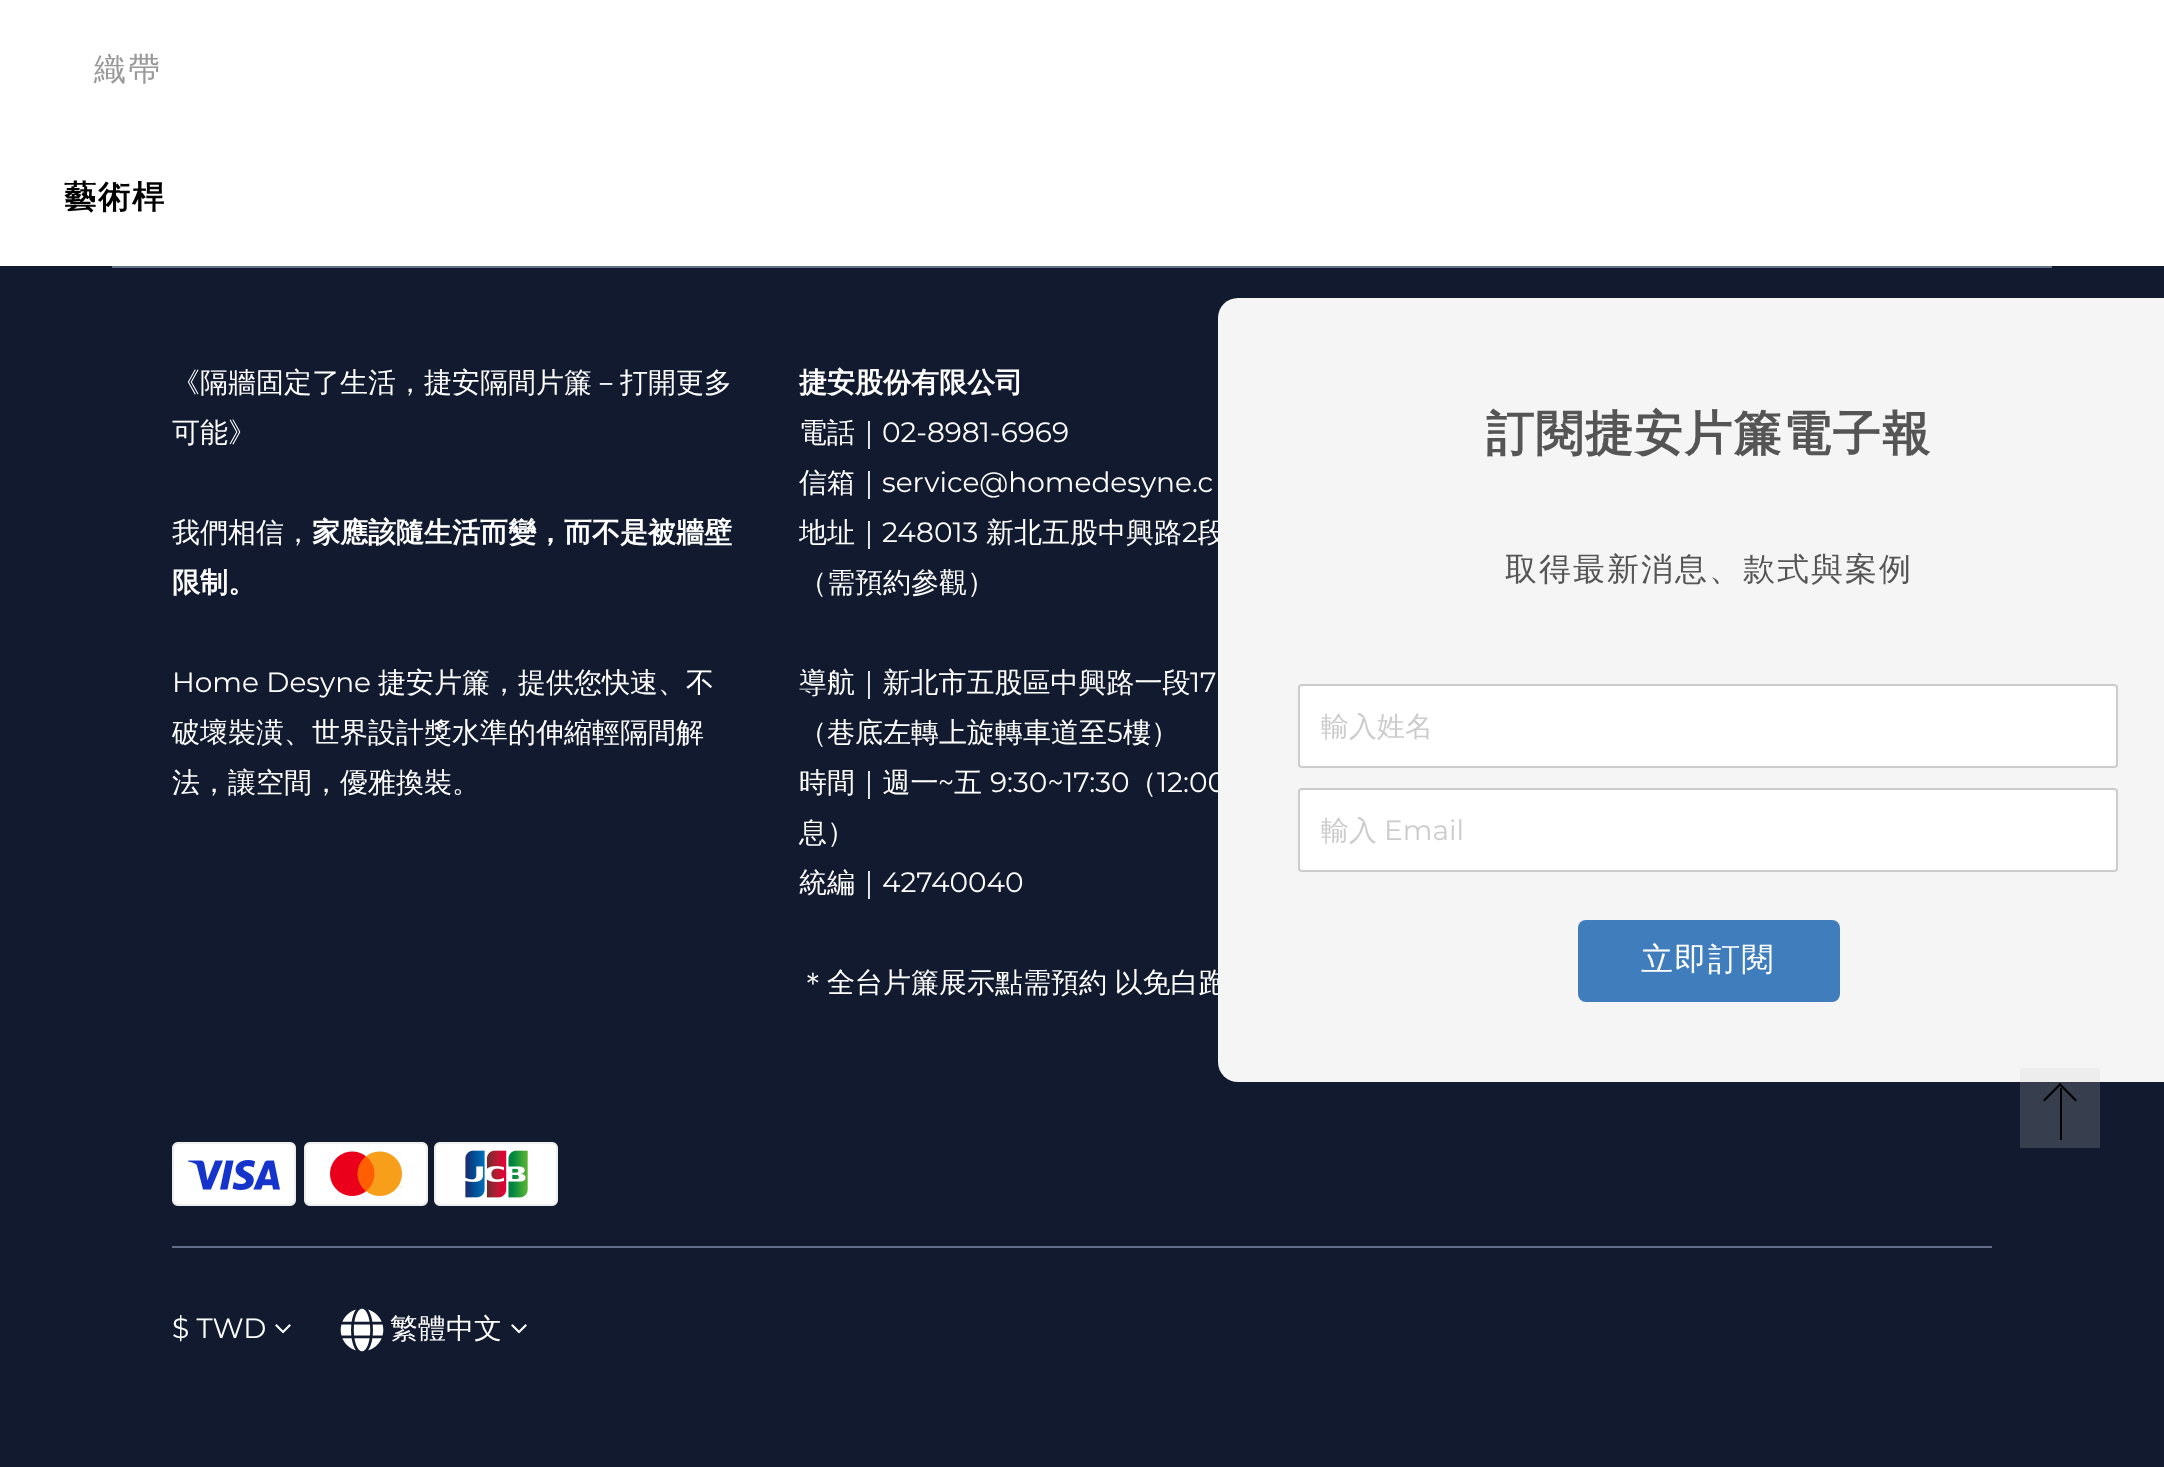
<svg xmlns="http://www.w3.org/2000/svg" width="2164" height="1467">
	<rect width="100%" height="100%" fill="#FFFFFF" />
	<text x="94" y="80" font-family="WenQuanYi Zen Hei" font-size="32" font-weight="500" letter-spacing="2" fill="#999999">織帶</text>
	<text x="64" y="208" font-family="WenQuanYi Zen Hei" font-size="32" font-weight="700" letter-spacing="2" fill="#000000">藝術桿</text>
	<rect x="0" y="266" width="2164" height="1201" fill="#121A2F" />
	<rect x="2020" y="1082" width="80" height="66" fill="#373E4E" />
	<rect x="112" y="266" width="1940" height="2" fill="#646E89" />
	<g font-family="WenQuanYi Zen Hei" font-size="28" font-weight="500" fill="#FFFFFF">
		<text x="172" y="392">《隔牆固定了生活，捷安隔間片簾－打開更多</text>
		<text x="172" y="442">可能》</text>
		<text x="172" y="542">我們相信，</text>
	</g>
	<g font-family="WenQuanYi Zen Hei" font-size="28" font-weight="700" fill="#FFFFFF">
		<text x="312" y="542">家應該隨生活而變，而不是被牆壁</text>
		<text x="172" y="592">限制。</text>
	</g>
	<text x="172" y="692" font-family="Montserrat" font-size="28" fill="#FFFFFF">Home Desyne</text>
	<g font-family="WenQuanYi Zen Hei" font-size="28" font-weight="500" fill="#FFFFFF">
		<text x="378" y="692">捷安片簾，提供您快速、不</text>
		<text x="172" y="742">破壞裝潢、世界設計獎水準的伸縮輕隔間解</text>
		<text x="172" y="792">法，讓空間，優雅換裝。</text>
	</g>
	<text x="799" y="392" font-family="WenQuanYi Zen Hei" font-size="28" font-weight="700" fill="#FFFFFF">捷安股份有限公司</text>
	<text x="799" y="442" font-family="WenQuanYi Zen Hei" font-size="28" font-weight="500" fill="#FFFFFF">電話｜</text>
	<text x="882" y="442" font-family="Montserrat" font-size="28" fill="#FFFFFF">02-8981-6969</text>
	<text x="799" y="492" font-family="WenQuanYi Zen Hei" font-size="28" font-weight="500" fill="#FFFFFF">信箱｜</text>
	<text x="882" y="492" font-family="Montserrat" font-size="28" fill="#FFFFFF">service@homedesyne.c</text>
	<text x="799" y="542" font-family="WenQuanYi Zen Hei" font-size="28" font-weight="500" fill="#FFFFFF">地址｜</text>
	<text x="882" y="542" font-family="Montserrat" font-size="28" fill="#FFFFFF">248013</text>
	<text x="986" y="542" font-family="WenQuanYi Zen Hei" font-size="28" font-weight="500" fill="#FFFFFF">新北五股中興路</text>
	<text x="1182" y="542" font-family="Montserrat" font-size="28" fill="#FFFFFF">2</text>
	<g font-family="WenQuanYi Zen Hei" font-size="28" font-weight="500" fill="#FFFFFF">
		<text x="1198" y="542">段</text>
		<text x="799" y="592">（需預約參觀）</text>
		<text x="799" y="692">導航｜新北市五股區中興路一段</text>
	</g>
	<text x="1190" y="692" font-family="Montserrat" font-size="28" fill="#FFFFFF">17</text>
	<text x="799" y="742" font-family="WenQuanYi Zen Hei" font-size="28" font-weight="500" fill="#FFFFFF">（巷底左轉上旋轉車道至</text>
	<text x="1107" y="742" font-family="Montserrat" font-size="28" fill="#FFFFFF">5</text>
	<g font-family="WenQuanYi Zen Hei" font-size="28" font-weight="500" fill="#FFFFFF">
		<text x="1123" y="742">樓）</text>
		<text x="799" y="792">時間｜週一</text>
	</g>
	<text x="938" y="792" font-family="Montserrat" font-size="28" fill="#FFFFFF">~</text>
	<text x="954" y="792" font-family="WenQuanYi Zen Hei" font-size="28" font-weight="500" fill="#FFFFFF">五</text>
	<text x="990" y="792" font-family="Montserrat" font-size="28" fill="#FFFFFF">9:30~17:30</text>
	<text x="1129" y="792" font-family="WenQuanYi Zen Hei" font-size="28" font-weight="500" fill="#FFFFFF">（</text>
	<text x="1157" y="792" font-family="Montserrat" font-size="28" fill="#FFFFFF">12:00</text>
	<g font-family="WenQuanYi Zen Hei" font-size="28" font-weight="500" fill="#FFFFFF">
		<text x="799" y="842">息）</text>
		<text x="799" y="892">統編｜</text>
	</g>
	<text x="882" y="892" font-family="Montserrat" font-size="28" fill="#FFFFFF">42740040</text>
	<text x="799" y="992" word-spacing="-1" font-family="WenQuanYi Zen Hei" font-size="28" font-weight="500" fill="#FFFFFF">＊全台片簾展示點需預約 以免白跑</text>
	<rect x="1218" y="298" width="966" height="784" rx="20" fill="#F5F5F5" />
	<rect x="2020" y="1068" width="80" height="14" fill="#EDEDED" />
	<text x="1486" y="450" font-family="WenQuanYi Zen Hei" font-size="48" font-weight="700" letter-spacing="1.5" fill="#555555">訂閱捷安片簾電子報</text>
	<text x="1505" y="580" font-family="WenQuanYi Zen Hei" font-size="32" font-weight="500" letter-spacing="2" fill="#555555">取得最新消息、款式與案例</text>
	<rect x="1299" y="685" width="818" height="82" rx="3" fill="#FFFFFF" stroke="#CCCCCC" stroke-width="2" />
	<text x="1321" y="736" font-family="WenQuanYi Zen Hei" font-size="28" font-weight="500" fill="#CCCCCC">輸入姓名</text>
	<rect x="1299" y="789" width="818" height="82" rx="3" fill="#FFFFFF" stroke="#CCCCCC" stroke-width="2" />
	<text x="1321" y="840" font-family="WenQuanYi Zen Hei" font-size="28" font-weight="500" fill="#CCCCCC">輸入</text>
	<text x="1384" y="840" font-family="Montserrat" font-size="28" fill="#CCCCCC">Email</text>
	<rect x="1578" y="920" width="262" height="82" rx="8" fill="#3F7DBD" />
	<text x="1641" y="970" font-family="WenQuanYi Zen Hei" font-size="32" font-weight="500" letter-spacing="1.5" fill="#FFFFFF">立即訂閱</text>
	<image x="172" y="1142" width="124" height="64" href="assets/img1.png" />
	<image x="304" y="1142" width="124" height="64" href="assets/img2.png" />
	<image x="434" y="1142" width="124" height="64" href="assets/img3.png" />
	<rect x="172" y="1246" width="1820" height="2" fill="#646E89" />
	<text x="172" y="1338" font-family="Montserrat" font-size="28" fill="#FFFFFF">$ TWD</text>
	<image x="275" y="1324" width="16" height="10" href="assets/img4.png" />
	<image x="340" y="1308" width="44" height="44" href="assets/img5.png" />
	<text x="390" y="1338" font-family="WenQuanYi Zen Hei" font-size="28" font-weight="500" fill="#FFFFFF">繁體中文</text>
	<image x="511" y="1324" width="16" height="10" href="assets/img4.png" />
	<path d="M2060 1083L2077 1100L2075.5 1101.5L2058.5 1084.5Z" fill="#000000" />
	<path d="M2060 1083L2061.5 1084.5L2044.5 1101.5L2043 1100Z" fill="#000000" />
	<rect x="2060" y="1088" width="2" height="52" fill="#000000" />
</svg>
